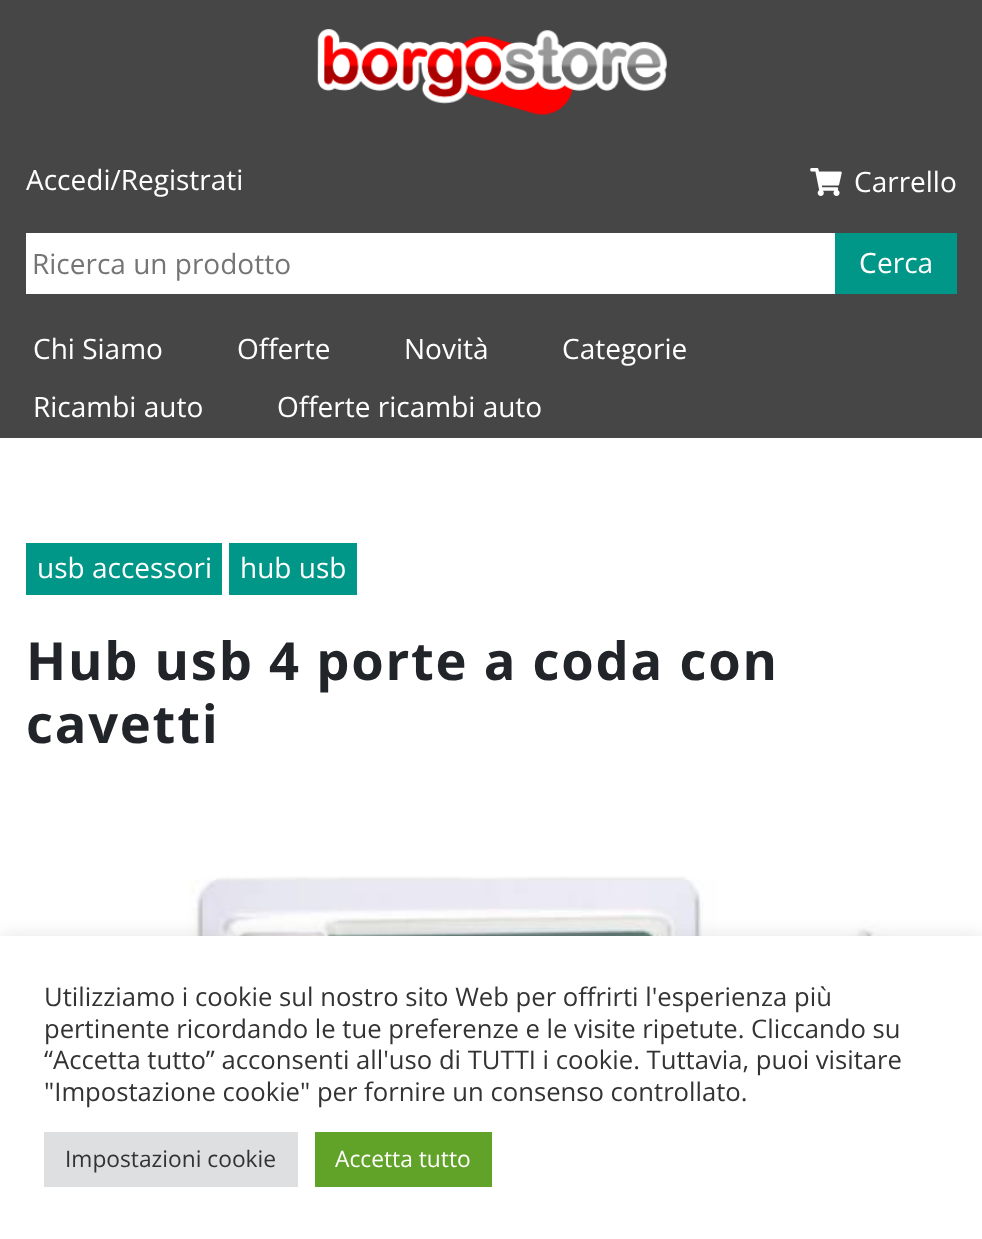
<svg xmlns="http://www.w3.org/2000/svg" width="982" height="1239">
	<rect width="100%" height="100%" fill="#FFFFFF" />
	<rect x="0" y="0" width="982" height="438" fill="#464646" />
	<image x="317" y="29" width="350" height="86" href="assets/img1.png" />
	<text x="26" y="190" font-family="Open Sans" font-size="28" fill="#FFFFFF">Accedi/Registrati</text>
	<image x="810" y="168" width="32" height="28" href="assets/img2.png" />
	<text x="854" y="192" font-family="Open Sans" font-size="28" fill="#FFFFFF">Carrello</text>
	<rect x="26" y="233" width="809" height="61" fill="#FFFFFF" />
	<text x="32" y="274" font-family="Open Sans" font-size="28" fill="#757575">Ricerca un prodotto</text>
	<rect x="835" y="233" width="122" height="61" fill="#009688" />
	<text x="859" y="273" font-family="Noto Sans" font-size="28" fill="#FFFFFF">C</text>
	<g font-family="Open Sans" font-size="28" fill="#FFFFFF">
		<text x="877" y="273">erca</text>
		<text x="33" y="359">Chi Siamo</text>
		<text x="237" y="359">Offerte</text>
		<text x="404" y="359">Novità</text>
		<text x="562" y="359">Categorie</text>
		<text x="33" y="417">Ricambi auto</text>
		<text x="277" y="417">Offerte ricambi auto</text>
	</g>
	<rect x="26" y="543" width="196" height="52" fill="#009688" />
	<text x="37" y="578" font-family="Open Sans" font-size="28" fill="#FFFFFF">usb accessori</text>
	<rect x="229" y="543" width="128" height="52" fill="#009688" />
	<text x="240" y="578" font-family="Open Sans" font-size="28" fill="#FFFFFF">hub usb</text>
	<text x="26" y="680" font-family="Noto Sans" font-size="52.5" font-weight="700" letter-spacing="1.75" fill="#212529">H</text>
	<g font-family="Open Sans" font-size="52.5" font-weight="700" letter-spacing="1.75" fill="#212529">
		<text x="68" y="680">ub usb 4 porte a coda con</text>
		<text x="26" y="743">cavetti</text>
	</g>
	<image x="189" y="876" width="769" height="60" href="assets/img3.png" />
	<rect x="0" y="935" width="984" height="302" fill="#ACABAB" fill-opacity="0.3" filter="blur(9px)" />
	<rect x="0" y="936" width="982" height="303" fill="#FFFFFF" />
	<g font-family="Open Sans" font-size="25.65" fill="#333333">
		<text x="44" y="1006">Utilizziamo i cookie sul nostro sito Web per offrirti l'esperienza più</text>
		<text x="44" y="1038">pertinente ricordando le tue preferenze e le visite ripetute. Cliccando su</text>
		<text x="44" y="1069">“Accetta tutto” acconsenti all'uso di TUTTI i cookie. Tuttavia, puoi visitare</text>
		<text x="44" y="1101">"Impostazione cookie" per fornire un consenso controllato.</text>
	</g>
	<rect x="44" y="1132" width="254" height="55" fill="#DEDFE0" />
	<text x="65" y="1167" font-family="Open Sans" font-size="22.75" fill="#333333">Impostazioni cookie</text>
	<rect x="315" y="1132" width="177" height="55" fill="#61A229" />
	<text x="335" y="1167" font-family="Open Sans" font-size="22.75" fill="#FFFFFF">Accetta tutto</text>
</svg>
